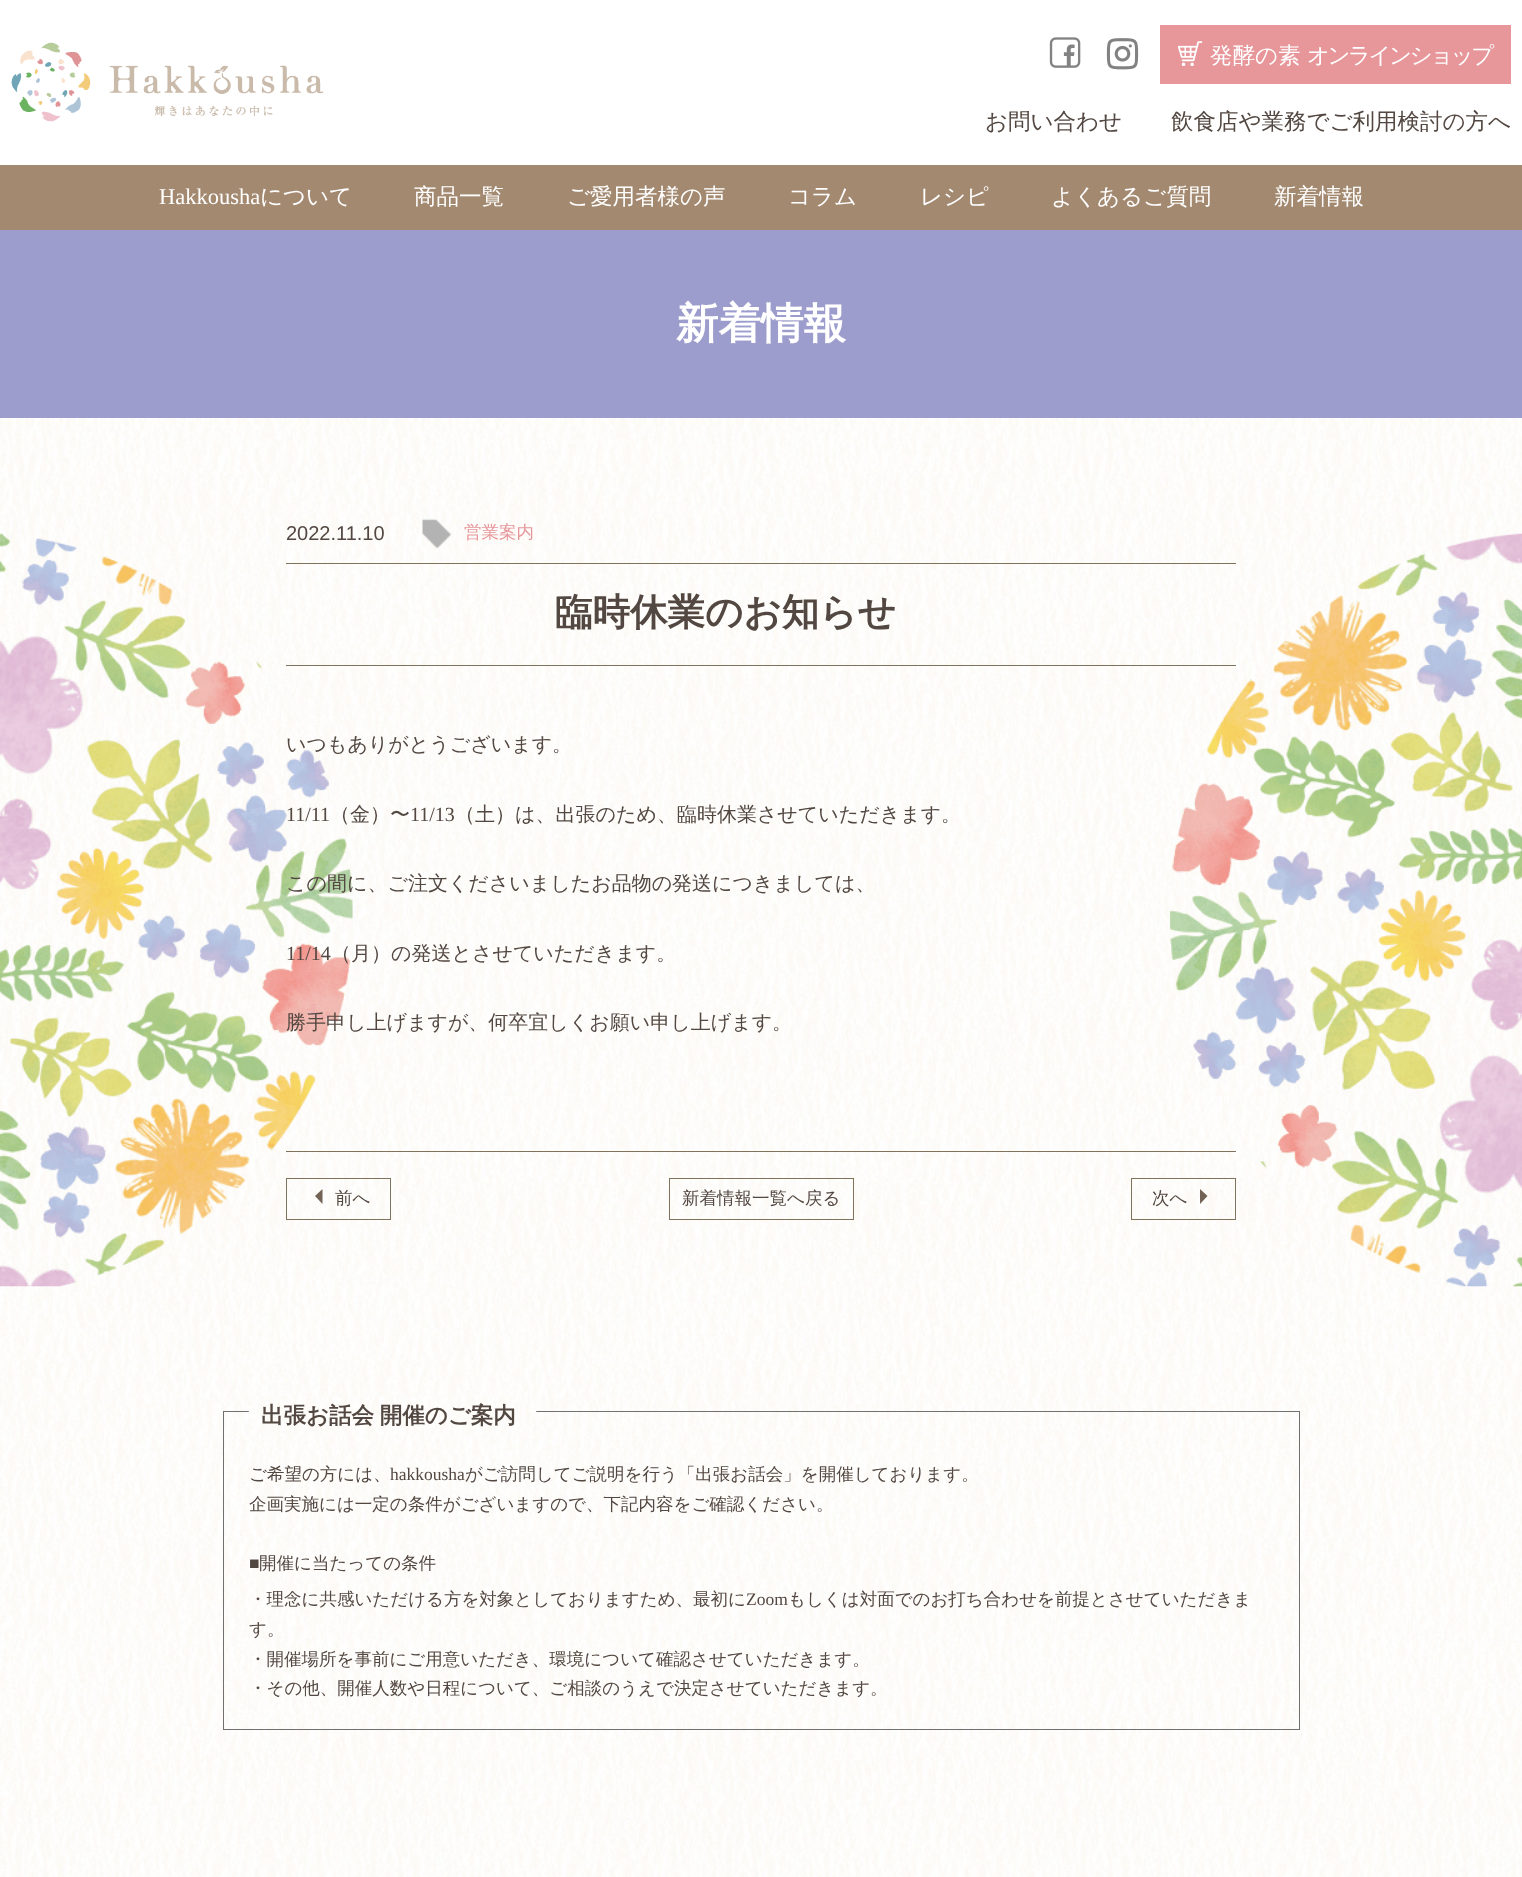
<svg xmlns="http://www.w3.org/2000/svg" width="1522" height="1877">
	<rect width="100%" height="100%" fill="#FFFFFF" />
	<image x="0" y="418" width="1522" height="1459" href="assets/img1.png" />
	<image x="11" y="42" width="313" height="80" href="assets/img2.png" />
	<image x="1049" y="37" width="32" height="31" href="assets/img3.png" />
	<image x="1106" y="38" width="33" height="32" href="assets/img4.png" />
	<rect x="1160" y="25" width="351" height="59" fill="#E7969A" />
	<image x="1178" y="41" width="25" height="25" href="assets/img5.png" />
	<text x="1210" y="63" font-family="WenQuanYi Zen Hei" font-size="22.5" font-weight="500" fill="#FFFFFF">発酵の素</text>
	<text x="1307" y="63" font-family="WenQuanYi Zen Hei" font-size="22.5" font-weight="500" letter-spacing="-2.5" fill="#FFFFFF">オンラインショップ</text>
	<g font-family="WenQuanYi Zen Hei" font-size="22.5" font-weight="500" fill="#534741">
		<text x="985" y="129">お問い合わせ</text>
		<text x="1171" y="129">飲食店や業務でご利用検討の方へ</text>
	</g>
	<rect x="0" y="165" width="1522" height="65" fill="#A48971" />
	<text x="159" y="204" font-family="Liberation Serif" font-size="22.5" fill="#FFFFFF">Hakkousha</text>
	<g font-family="WenQuanYi Zen Hei" font-size="22.5" font-weight="500" fill="#FFFFFF">
		<text x="260" y="204">について</text>
		<text x="414" y="204">商品一覧</text>
		<text x="567" y="204">ご愛用者様の声</text>
		<text x="788" y="204">コラム</text>
		<text x="920" y="204">レシピ</text>
		<text x="1051" y="204">よくあるご質問</text>
		<text x="1274" y="204">新着情報</text>
	</g>
	<rect x="0" y="230" width="1522" height="188" fill="#9C9DCD" />
	<text x="676" y="338" font-family="WenQuanYi Zen Hei" font-size="42.5" font-weight="700" fill="#FFFFFF">新着情報</text>
	<image x="0" y="533" width="1522" height="754" href="assets/img6.png" />
	<text x="286" y="540" font-family="Liberation Sans" font-size="20" fill="#534741">2022.11.10</text>
	<image x="422" y="518" width="30" height="31" href="assets/img7.png" />
	<text x="464" y="538" font-family="WenQuanYi Zen Hei" font-size="17.5" font-weight="500" fill="#E7969A">営業案内</text>
	<rect x="286" y="563" width="950" height="1" fill="#80735E" />
	<rect x="286" y="665" width="950" height="1" fill="#80735E" />
	<text x="555" y="625" font-family="WenQuanYi Zen Hei" font-size="37.5" font-weight="700" fill="#534741">臨時休業のお知らせ</text>
	<text x="286" y="751" font-family="WenQuanYi Zen Hei" font-size="20" font-weight="500" fill="#534741">いつもありがとうございます。</text>
	<text x="286" y="821" font-family="Liberation Serif" font-size="20" fill="#534741">11/11</text>
	<text x="330" y="821" font-family="WenQuanYi Zen Hei" font-size="20" font-weight="500" fill="#534741">（金）〜</text>
	<text x="410" y="821" font-family="Liberation Serif" font-size="20" fill="#534741">11/13</text>
	<g font-family="WenQuanYi Zen Hei" font-size="20" font-weight="500" fill="#534741">
		<text x="455" y="821">（土）は、出張のため、臨時休業させていただきます。</text>
		<text x="286" y="890">この間に、ご注文くださいましたお品物の発送につきましては、</text>
	</g>
	<text x="286" y="960" font-family="Liberation Serif" font-size="20" fill="#534741">11/14</text>
	<g font-family="WenQuanYi Zen Hei" font-size="20" font-weight="500" fill="#534741">
		<text x="331" y="960">（月）の発送とさせていただきます。</text>
		<text x="286" y="1029">勝手申し上げますが、何卒宜しくお願い申し上げます。</text>
	</g>
	<rect x="286" y="1151" width="950" height="1" fill="#80735E" />
	<rect x="286.5" y="1178.5" width="104" height="41" fill="none" stroke="#80735E" />
	<path d="M322.5 1189V1204L315 1196Z" fill="#736357" />
	<text x="335" y="1204" font-family="WenQuanYi Zen Hei" font-size="17.5" font-weight="500" fill="#534741">前へ</text>
	<rect x="669.5" y="1178.5" width="184" height="41" fill="none" stroke="#80735E" />
	<text x="682" y="1204" font-family="WenQuanYi Zen Hei" font-size="17.5" font-weight="500" fill="#534741">新着情報一覧へ戻る</text>
	<rect x="1131.5" y="1178.5" width="104" height="41" fill="none" stroke="#80735E" />
	<text x="1152" y="1204" font-family="WenQuanYi Zen Hei" font-size="17.5" font-weight="500" fill="#534741">次へ</text>
	<path d="M1200 1204V1189L1207.5 1196Z" fill="#736357" />
	<rect x="223.5" y="1411.5" width="1076" height="318" fill="none" stroke="#707070" />
	<image x="248" y="1396" width="289" height="39" href="assets/img8.png" />
	<text x="261" y="1423" word-spacing="-1" font-family="WenQuanYi Zen Hei" font-size="22.5" font-weight="700" fill="#534741">出張お話会 開催のご案内</text>
	<text x="249" y="1480" font-family="WenQuanYi Zen Hei" font-size="17.5" font-weight="500" fill="#534741">ご希望の方には、</text>
	<text x="390" y="1480" font-family="Liberation Serif" font-size="17.5" fill="#534741">hakkousha</text>
	<g font-family="WenQuanYi Zen Hei" font-size="17.5" font-weight="500" fill="#534741">
		<text x="465" y="1480">がご訪問してご説明を行う「出張お話会」を開催しております。</text>
		<text x="249" y="1510">企画実施には一定の条件がございますので、下記内容をご確認ください。</text>
	</g>
	<text x="249" y="1569" font-family="Liberation Serif" font-size="17.5" fill="#534741">■</text>
	<g font-family="WenQuanYi Zen Hei" font-size="17.5" font-weight="500" fill="#534741">
		<text x="259" y="1569">開催に当たっての条件</text>
		<text x="249" y="1605">・理念に共感いただける方を対象としておりますため、最初に</text>
	</g>
	<text x="746" y="1605" font-family="Liberation Serif" font-size="17.5" fill="#534741">Zoom</text>
	<g font-family="WenQuanYi Zen Hei" font-size="17.5" font-weight="500" fill="#534741">
		<text x="788" y="1605">もしくは対面でのお打ち合わせを前提とさせていただきま</text>
		<text x="249" y="1635">す。</text>
		<text x="249" y="1665">・開催場所を事前にご用意いただき、環境について確認させていただきます。</text>
		<text x="249" y="1694">・その他、開催人数や日程について、ご相談のうえで決定させていただきます。</text>
	</g>
</svg>
